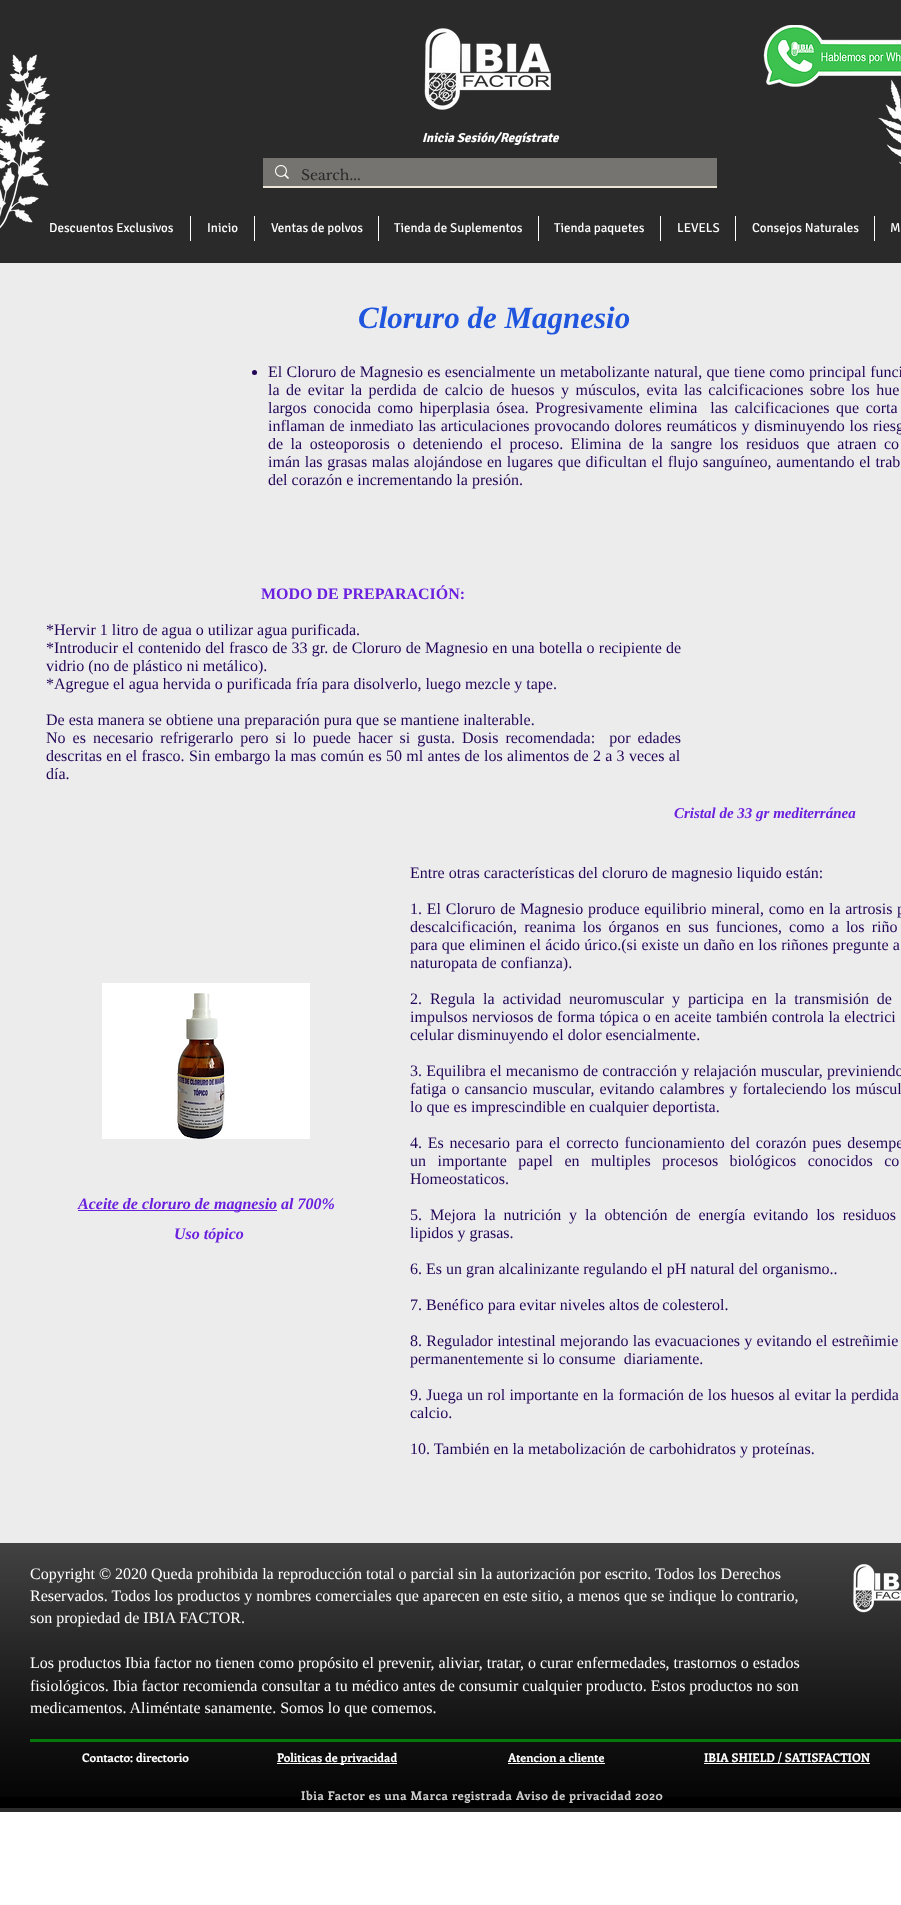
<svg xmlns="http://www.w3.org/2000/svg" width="901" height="1905">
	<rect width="100%" height="100%" fill="#FFFFFF" />
	<rect x="0" y="0" width="901" height="263" fill="#2A2A2A" />
	<image x="0" y="54" width="50" height="175" href="assets/img1.png" />
	<image x="424" y="28" width="127" height="82" href="assets/img2.png" />
	<image x="763" y="25" width="138" height="62" href="assets/img3.png" />
	<text x="422" y="142" font-family="Signika" font-size="13" font-weight="700" font-style="italic" fill="#FFFFFF">Inicia Sesión/Regístrate</text>
	<image x="878" y="79" width="23" height="85" href="assets/img4.png" />
	<rect x="263" y="186" width="454" height="2" fill="#EBE5D6" />
	<rect x="263" y="158" width="454" height="28" fill="#767471" />
	<image x="275" y="165" width="14" height="14" href="assets/img5.png" />
	<text x="301" y="180" font-family="Libre Baskerville" font-size="14" fill="#2A2A2A">Search...</text>
	<text x="49" y="232" font-family="Signika" font-size="13" fill="#FFFFFF">Descuentos Exclusivos</text>
	<rect x="190" y="216" width="1" height="25" fill="#FFFFFF" />
	<text x="207" y="232" font-family="Signika" font-size="13" fill="#FFFFFF">Inicio</text>
	<rect x="254" y="216" width="1" height="25" fill="#FFFFFF" />
	<text x="271" y="232" font-family="Signika" font-size="13" fill="#FFFFFF">Ventas de polvos</text>
	<rect x="378" y="216" width="1" height="25" fill="#FFFFFF" />
	<text x="394" y="232" font-family="Signika" font-size="13" fill="#FFFFFF">Tienda de Suplementos</text>
	<rect x="538" y="216" width="1" height="25" fill="#FFFFFF" />
	<text x="554" y="232" font-family="Signika" font-size="13" fill="#FFFFFF">Tienda paquetes</text>
	<rect x="660" y="216" width="1" height="25" fill="#FFFFFF" />
	<text x="677" y="232" font-family="Signika" font-size="13" fill="#FFFFFF">LEVELS</text>
	<rect x="735" y="216" width="1" height="25" fill="#FFFFFF" />
	<text x="752" y="232" font-family="Signika" font-size="13" fill="#FFFFFF">Consejos Naturales</text>
	<rect x="874" y="216" width="1" height="25" fill="#FFFFFF" />
	<text x="890" y="232" font-family="Signika" font-size="13" fill="#FFFFFF">M</text>
	<rect x="0" y="263" width="901" height="1280" fill="#ECECEC" />
	<text x="358" y="328" font-family="Liberation Serif" font-size="31" font-weight="700" font-style="italic" fill="#2056DD">Cloruro de Magnesio</text>
	<circle cx="254.5" cy="372.5" r="2.5" fill="#220557" />
	<g font-family="Liberation Serif" font-size="16" fill="#220557">
		<text x="268" y="377" word-spacing="0.25">El Cloruro de Magnesio es esencialmente un metabolizante natural, que tiene como principal funci</text>
		<text x="268" y="395" word-spacing="2.5">la de evitar la perdida de calcio de huesos y músculos, evita las calcificaciones sobre los hue</text>
		<text x="268" y="413" word-spacing="2.5" xml:space="preserve">largos conocida como hiperplasia ósea. Progresivamente elimina  las calcificaciones que corta</text>
		<text x="268" y="431" word-spacing="0.75">inflaman de inmediato las articulaciones provocando dolores reumáticos y disminuyendo los riesg</text>
		<text x="268" y="449" word-spacing="3.5">de la osteoporosis o deteniendo el proceso. Elimina de la sangre los residuos que atraen co</text>
		<text x="268" y="467" word-spacing="0.7">imán las grasas malas alojándose en lugares que dificultan el flujo sanguíneo, aumentando el trab</text>
		<text x="268" y="485">del corazón e incrementando la presión.</text>
	</g>
	<text x="261" y="599" font-family="Liberation Serif" font-size="16" font-weight="700" fill="#6A20DD">MODO DE PREPARACIÓN:</text>
	<g font-family="Liberation Serif" font-size="16" fill="#220557">
		<text x="46" y="635">*Hervir 1 litro de agua o utilizar agua purificada.</text>
		<text x="46" y="653" word-spacing="0.2">*Introducir el contenido del frasco de 33 gr. de Cloruro de Magnesio en una botella o recipiente de</text>
		<text x="46" y="671">vidrio (no de plástico ni metálico).</text>
		<text x="46" y="689">*Agregue el agua hervida o purificada fría para disolverlo, luego mezcle y tape.</text>
		<text x="46" y="725">De esta manera se obtiene una preparación pura que se mantiene inalterable.</text>
		<text x="46" y="743" word-spacing="3" xml:space="preserve">No es necesario refrigerarlo pero si lo puede hacer si gusta. Dosis recomendada:  por edades</text>
		<text x="46" y="761" word-spacing="0.3">descritas en el frasco. Sin embargo la mas común es 50 ml antes de los alimentos de 2 a 3 veces al</text>
		<text x="46" y="779">día.</text>
	</g>
	<text x="674" y="818" font-family="Liberation Serif" font-size="15" font-weight="700" font-style="italic" fill="#6A20DD">Cristal de 33 gr mediterránea</text>
	<image x="102" y="983" width="208" height="156" href="assets/img6.png" />
	<g font-family="Liberation Serif" font-size="16" fill="#220557">
		<text x="410" y="878">Entre otras características del cloruro de magnesio liquido están:</text>
		<text x="410" y="914" word-spacing="0.75">1. El Cloruro de Magnesio produce equilibrio mineral, como en la artrosis p</text>
		<text x="410" y="932" word-spacing="3.1">descalcificación, reanima los órganos en sus funciones, como a los riño</text>
		<text x="410" y="950" word-spacing="0.3">para que eliminen el ácido úrico.(si existe un daño en los riñones pregunte a</text>
		<text x="410" y="968">naturopata de confianza).</text>
		<text x="410" y="1004" word-spacing="3.9">2. Regula la actividad neuromuscular y participa en la transmisión de</text>
		<text x="410" y="1022" word-spacing="0.25">impulsos nerviosos de forma tópica o en aceite también controla la electrici</text>
		<text x="410" y="1040">celular disminuyendo el dolor esencialmente.</text>
		<text x="410" y="1076" word-spacing="0.25">3. Equilibra el mecanismo de contracción y relajación muscular, previniendo</text>
		<text x="410" y="1094" word-spacing="1">fatiga o cansancio muscular, evitando calambres y fortaleciendo los múscul</text>
		<text x="410" y="1112">lo que es imprescindible en cualquier deportista.</text>
		<text x="410" y="1148" word-spacing="1.75">4. Es necesario para el correcto funcionamiento del corazón pues desempe</text>
		<text x="410" y="1166" word-spacing="7.5">un importante papel en multiples procesos biológicos conocidos co</text>
		<text x="410" y="1184">Homeostaticos.</text>
		<text x="410" y="1220" word-spacing="3.9">5. Mejora la nutrición y la obtención de energía evitando los residuos</text>
		<text x="410" y="1238">lipidos y grasas.</text>
		<text x="410" y="1274">6. Es un gran alcalinizante regulando el pH natural del organismo..</text>
		<text x="410" y="1310">7. Benéfico para evitar niveles altos de colesterol.</text>
		<text x="410" y="1346" word-spacing="0.25">8. Regulador intestinal mejorando las evacuaciones y evitando el estreñimie</text>
		<text x="410" y="1364" xml:space="preserve">permanentemente si lo consume  diariamente.</text>
		<text x="410" y="1400" word-spacing="0.3">9. Juega un rol importante en la formación de los huesos al evitar la perdida</text>
		<text x="410" y="1418">calcio.</text>
		<text x="410" y="1454">10. También en la metabolización de carbohidratos y proteínas.</text>
	</g>
	<rect x="78" y="1210" width="199" height="1" fill="#6A20DD" />
	<g font-family="Liberation Serif" font-size="16" font-weight="700" font-style="italic" fill="#6A20DD">
		<text x="78" y="1209">Aceite de cloruro de magnesio al 700%</text>
		<text x="174" y="1239">Uso tópico</text>
	</g>
	<rect x="0" y="1543" width="901" height="265" fill="#000000" />
	<image x="0" y="1543" width="901" height="254" href="assets/img7.png" />
	<rect x="0" y="1808" width="901" height="4" fill="#2A2A2A" />
	<g font-family="Liberation Serif" font-size="16" fill="#FFFFFF">
		<text x="30" y="1579">Copyright © 2020 Queda prohibida la reproducción total o parcial sin la autorización por escrito. Todos los Derechos</text>
		<text x="30" y="1601">Reservados. Todos los productos y nombres comerciales que aparecen en este sitio, a menos que se indique lo contrario,</text>
		<text x="30" y="1623">son propiedad de IBIA FACTOR.</text>
		<text x="30" y="1668">Los productos Ibia factor no tienen como propósito el prevenir, aliviar, tratar, o curar enfermedades, trastornos o estados</text>
		<text x="30" y="1691">fisiológicos. Ibia factor recomienda consultar a tu médico antes de consumir cualquier producto. Estos productos no son</text>
		<text x="30" y="1713">medicamentos. Aliméntate sanamente. Somos lo que comemos.</text>
	</g>
	<image x="853" y="1564" width="48" height="49" href="assets/img8.png" />
	<rect x="30" y="1739" width="871" height="3" fill="#04780A" />
	<text x="82" y="1762" font-family="Enriqueta" font-size="12" font-weight="700" fill="#FFFFFF">Contacto: directorio</text>
	<rect x="277" y="1763" width="120" height="1" fill="#FFFFFF" />
	<g font-family="Enriqueta" font-size="12" font-weight="700" fill="#FFFFFF">
		<text x="277" y="1762">Politicas de privacidad</text>
		<text x="508" y="1762">Atencion a cliente</text>
	</g>
	<rect x="508" y="1763" width="97" height="1" fill="#FFFFFF" />
	<rect x="704" y="1763" width="166" height="1" fill="#FFFFFF" />
	<text x="704" y="1762" font-family="Enriqueta" font-size="12" font-weight="700" fill="#FFFFFF">IBIA SHIELD / SATISFACTION</text>
	<text x="301" y="1800" font-family="Enriqueta" font-size="12" font-weight="700" letter-spacing="0.6" fill="#CCCCCC">Ibia Factor es una Marca registrada Aviso de privacidad 2020</text>
</svg>
